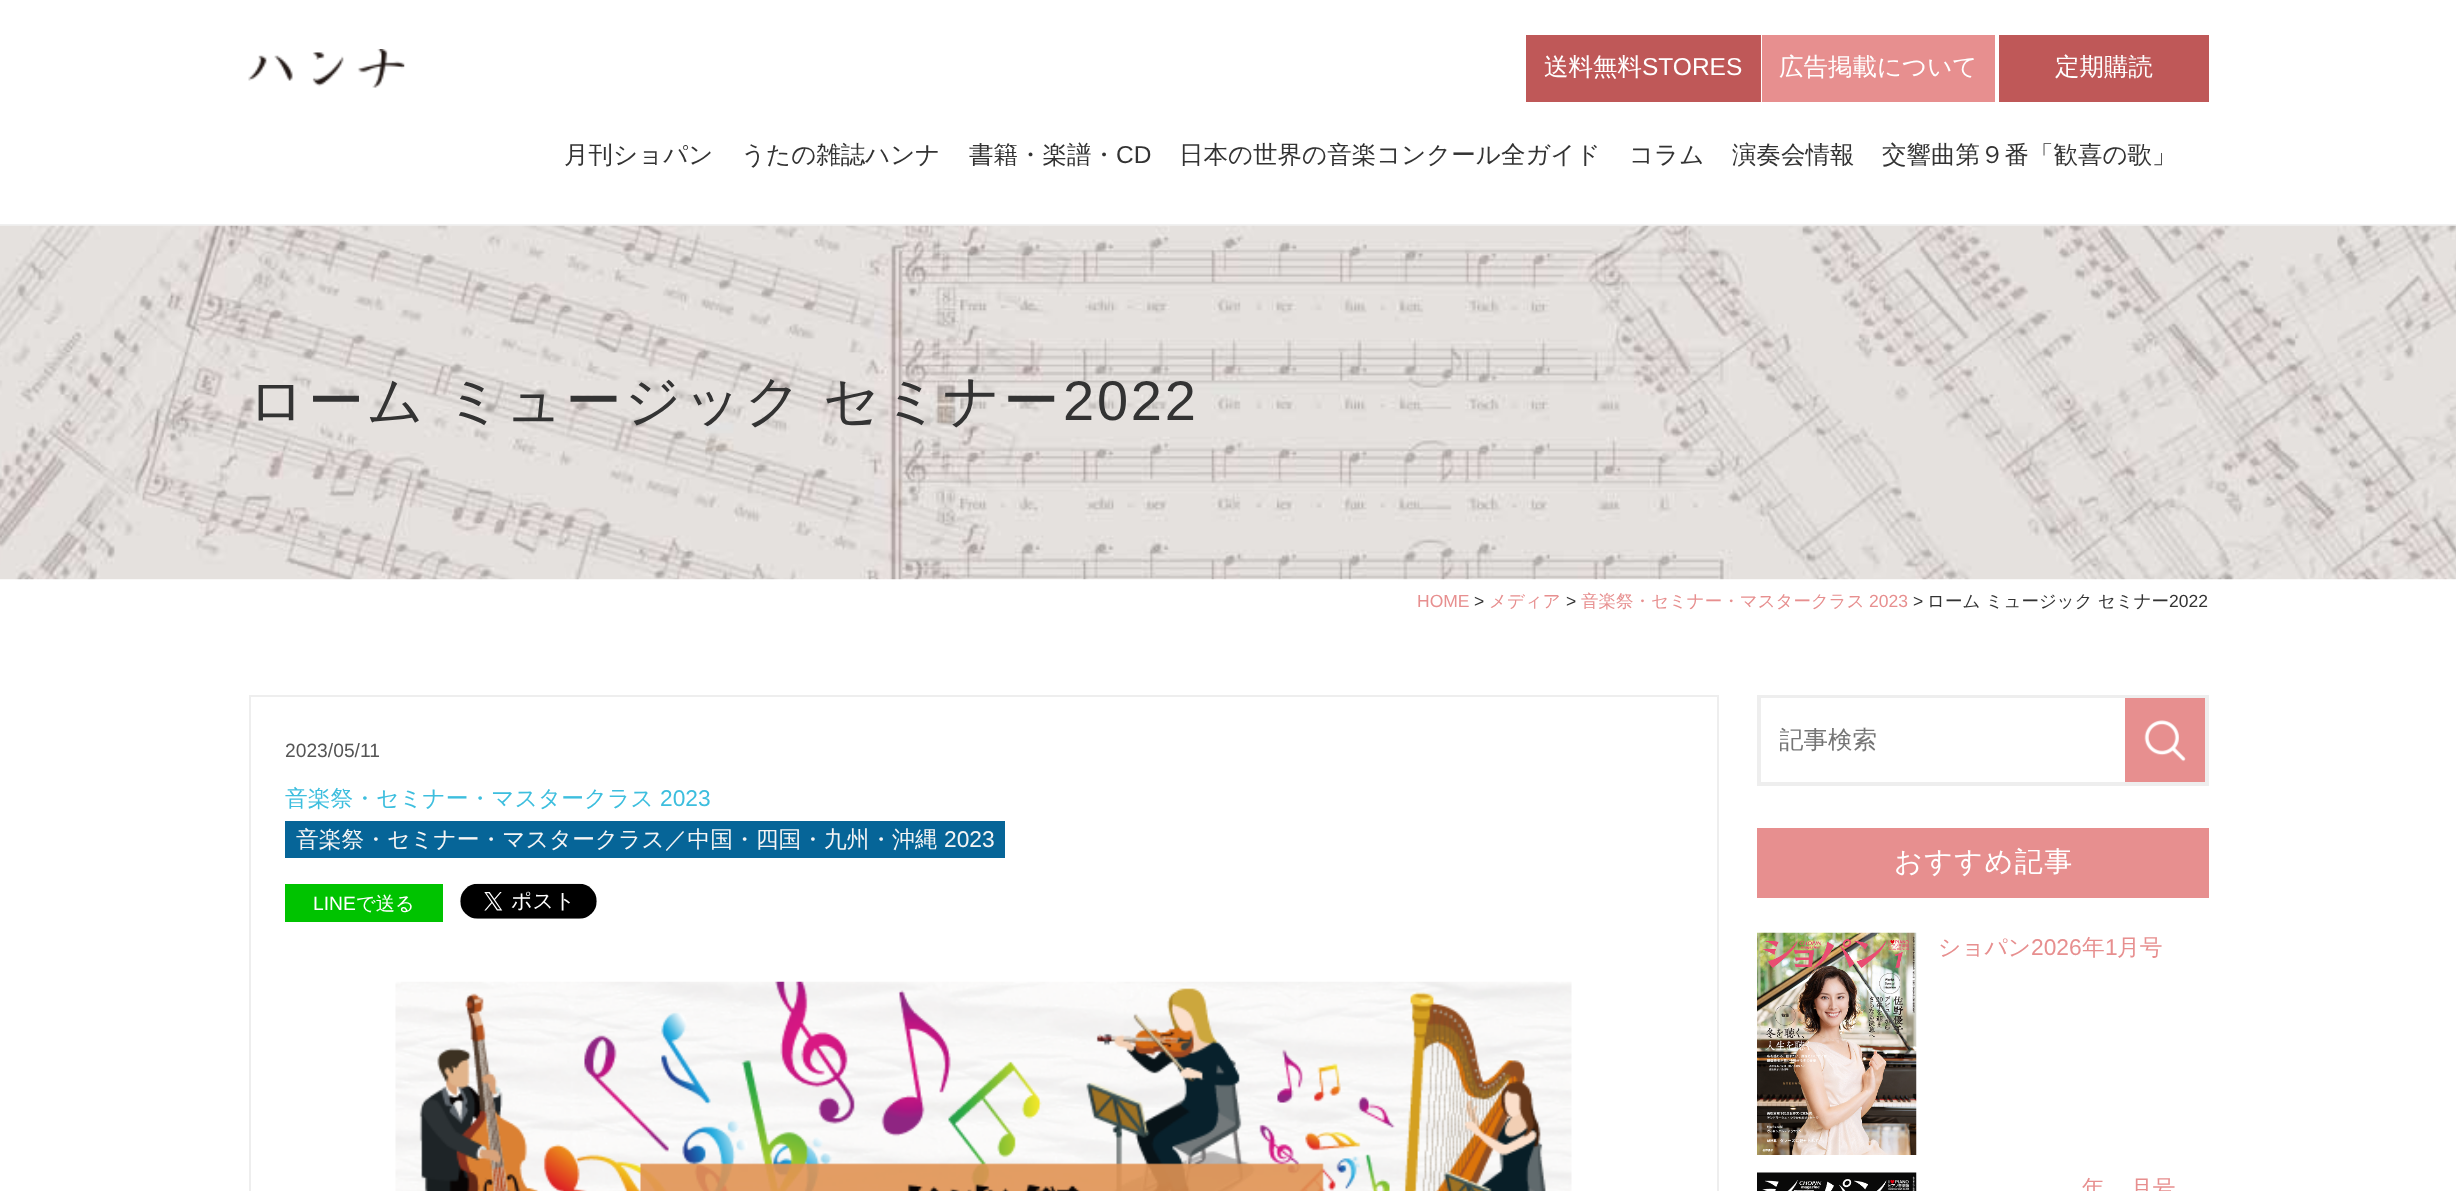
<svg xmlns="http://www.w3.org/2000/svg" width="2456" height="1191">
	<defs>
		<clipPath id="clip1"><rect x="1780" y="726" width="327" height="32" /></clipPath>
	</defs>
	<rect width="100%" height="100%" fill="#FFFFFF" />
	<rect x="0" y="224" width="2456" height="2" fill="#F0F0F0" />
	<image x="248" y="49" width="157" height="39" href="assets/img1.png" />
	<rect x="1526" y="35" width="235" height="67" fill="#BF5858" />
	<text x="1544" y="75" font-family="WenQuanYi Zen Hei" font-size="24.5" font-weight="500" fill="#FFFFFF">送料無料</text>
	<text x="1642" y="75" font-family="Liberation Sans" font-size="24.5" fill="#FFFFFF">STORES</text>
	<rect x="1762" y="35" width="233" height="67" fill="#E78F8F" />
	<text x="1779" y="75" font-family="WenQuanYi Zen Hei" font-size="24.5" font-weight="500" fill="#FFFFFF">広告掲載について</text>
	<rect x="1999" y="35" width="210" height="67" fill="#BF5858" />
	<text x="2055" y="75" font-family="WenQuanYi Zen Hei" font-size="24.5" font-weight="500" fill="#FFFFFF">定期購読</text>
	<g font-family="WenQuanYi Zen Hei" font-size="24.5" font-weight="500" fill="#333333">
		<text x="564" y="163">月刊ショパン</text>
		<text x="741" y="163">うたの雑誌ハンナ</text>
		<text x="969" y="163">書籍・楽譜・</text>
	</g>
	<text x="1116" y="163" font-family="Liberation Sans" font-size="24.5" fill="#333333">CD</text>
	<g font-family="WenQuanYi Zen Hei" font-size="24.5" font-weight="500" fill="#333333">
		<text x="1179" y="163">日本の世界の音楽コンクール全ガイド</text>
		<text x="1629" y="163">コラム</text>
		<text x="1732" y="163">演奏会情報</text>
		<text x="1882" y="163">交響曲第９番「歓喜の歌」</text>
	</g>
	<image x="0" y="225" width="2456" height="355" href="assets/img2.png" />
	<text x="248" y="420" word-spacing="-1" font-family="WenQuanYi Zen Hei" font-size="56" font-weight="500" letter-spacing="2.75" fill="#333333">ローム ミュージック セミナー</text>
	<text x="1063" y="420" font-family="Liberation Sans" font-size="56" letter-spacing="2.75" fill="#333333">2022</text>
	<text x="1417" y="607" font-family="Liberation Sans" font-size="17.5" fill="#E78F8F">HOME</text>
	<text x="1474" y="607" font-family="Liberation Sans" font-size="17.5" fill="#333333">&gt;</text>
	<text x="1489" y="607" font-family="WenQuanYi Zen Hei" font-size="17.5" font-weight="500" fill="#E78F8F">メディア</text>
	<text x="1566" y="607" font-family="Liberation Sans" font-size="17.5" fill="#333333">&gt;</text>
	<text x="1581" y="607" font-family="WenQuanYi Zen Hei" font-size="17.5" font-weight="500" fill="#E78F8F">音楽祭・セミナー・マスタークラス</text>
	<text x="1869" y="607" font-family="Liberation Sans" font-size="17.5" fill="#E78F8F">2023</text>
	<text x="1913" y="607" font-family="Liberation Sans" font-size="17.5" fill="#333333">&gt;</text>
	<text x="1927" y="607" font-family="WenQuanYi Zen Hei" font-size="17.5" font-weight="500" fill="#333333">ローム ミュージック セミナー</text>
	<text x="2169" y="607" font-family="Liberation Sans" font-size="17.5" fill="#333333">2022</text>
	<rect x="250" y="696" width="1468" height="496" fill="none" stroke="#EEEEEE" stroke-width="2" />
	<text x="285" y="757" font-family="Liberation Sans" font-size="19.25" fill="#555555">2023/05/11</text>
	<text x="285" y="806" font-family="WenQuanYi Zen Hei" font-size="22.75" font-weight="500" fill="#3DBEDE">音楽祭・セミナー・マスタークラス</text>
	<text x="660" y="806" font-family="Liberation Sans" font-size="22.75" fill="#3DBEDE">2023</text>
	<rect x="285" y="821" width="720" height="37" fill="#066598" />
	<text x="296" y="847" font-family="WenQuanYi Zen Hei" font-size="22.75" font-weight="500" fill="#F5F5F5">音楽祭・セミナー・マスタークラス／中国・四国・九州・沖縄</text>
	<text x="944" y="847" font-family="Liberation Sans" font-size="22.75" fill="#F5F5F5">2023</text>
	<rect x="285" y="884" width="158" height="38" fill="#00C300" />
	<text x="313" y="910" font-family="Liberation Sans" font-size="19.25" fill="#FFFFFF">LINE</text>
	<text x="356" y="910" font-family="WenQuanYi Zen Hei" font-size="19.25" font-weight="500" fill="#FFFFFF">で送る</text>
	<image x="460" y="883" width="137" height="36" href="assets/img3.png" />
	<image x="395" y="981" width="1177" height="210" href="assets/img4.png" />
	<rect x="1759" y="697" width="448" height="87" fill="none" stroke="#EEEEEE" stroke-width="4" />
	<rect x="1761" y="698" width="364" height="1" fill="#FFFFFF" />
	<g clip-path="url(#clip1)">
		<text x="1779" y="748" font-family="WenQuanYi Zen Hei" font-size="24.5" font-weight="500" fill="#757575">記事検索</text>
	</g>
	<rect x="2125" y="698" width="80" height="84" fill="#E78F8F" />
	<image x="2144" y="720" width="42" height="42" href="assets/img5.png" />
	<rect x="1757" y="828" width="452" height="70" fill="#E78F8F" />
	<text x="1894" y="871" font-family="WenQuanYi Zen Hei" font-size="28" font-weight="500" letter-spacing="1.5" fill="#FFFFFF">おすすめ記事</text>
	<image x="1757" y="932" width="160" height="223" href="assets/img6.png" />
	<text x="1938" y="955" font-family="WenQuanYi Zen Hei" font-size="22.75" font-weight="500" fill="#E78F8F">ショパン</text>
	<text x="2031" y="955" font-family="Liberation Sans" font-size="22.75" fill="#E78F8F">2026</text>
	<text x="2082" y="955" font-family="WenQuanYi Zen Hei" font-size="22.75" font-weight="500" fill="#E78F8F">年</text>
	<text x="2105" y="955" font-family="Liberation Sans" font-size="22.75" fill="#E78F8F">1</text>
	<text x="2117" y="955" font-family="WenQuanYi Zen Hei" font-size="22.75" font-weight="500" fill="#E78F8F">月号</text>
	<image x="1757" y="1172" width="160" height="19" href="assets/img7.png" />
	<g font-family="WenQuanYi Zen Hei" font-size="22.75" font-weight="500" fill="#E78F8F">
		<text x="2082" y="1196">年</text>
		<text x="2130" y="1196">月号</text>
	</g>
</svg>
